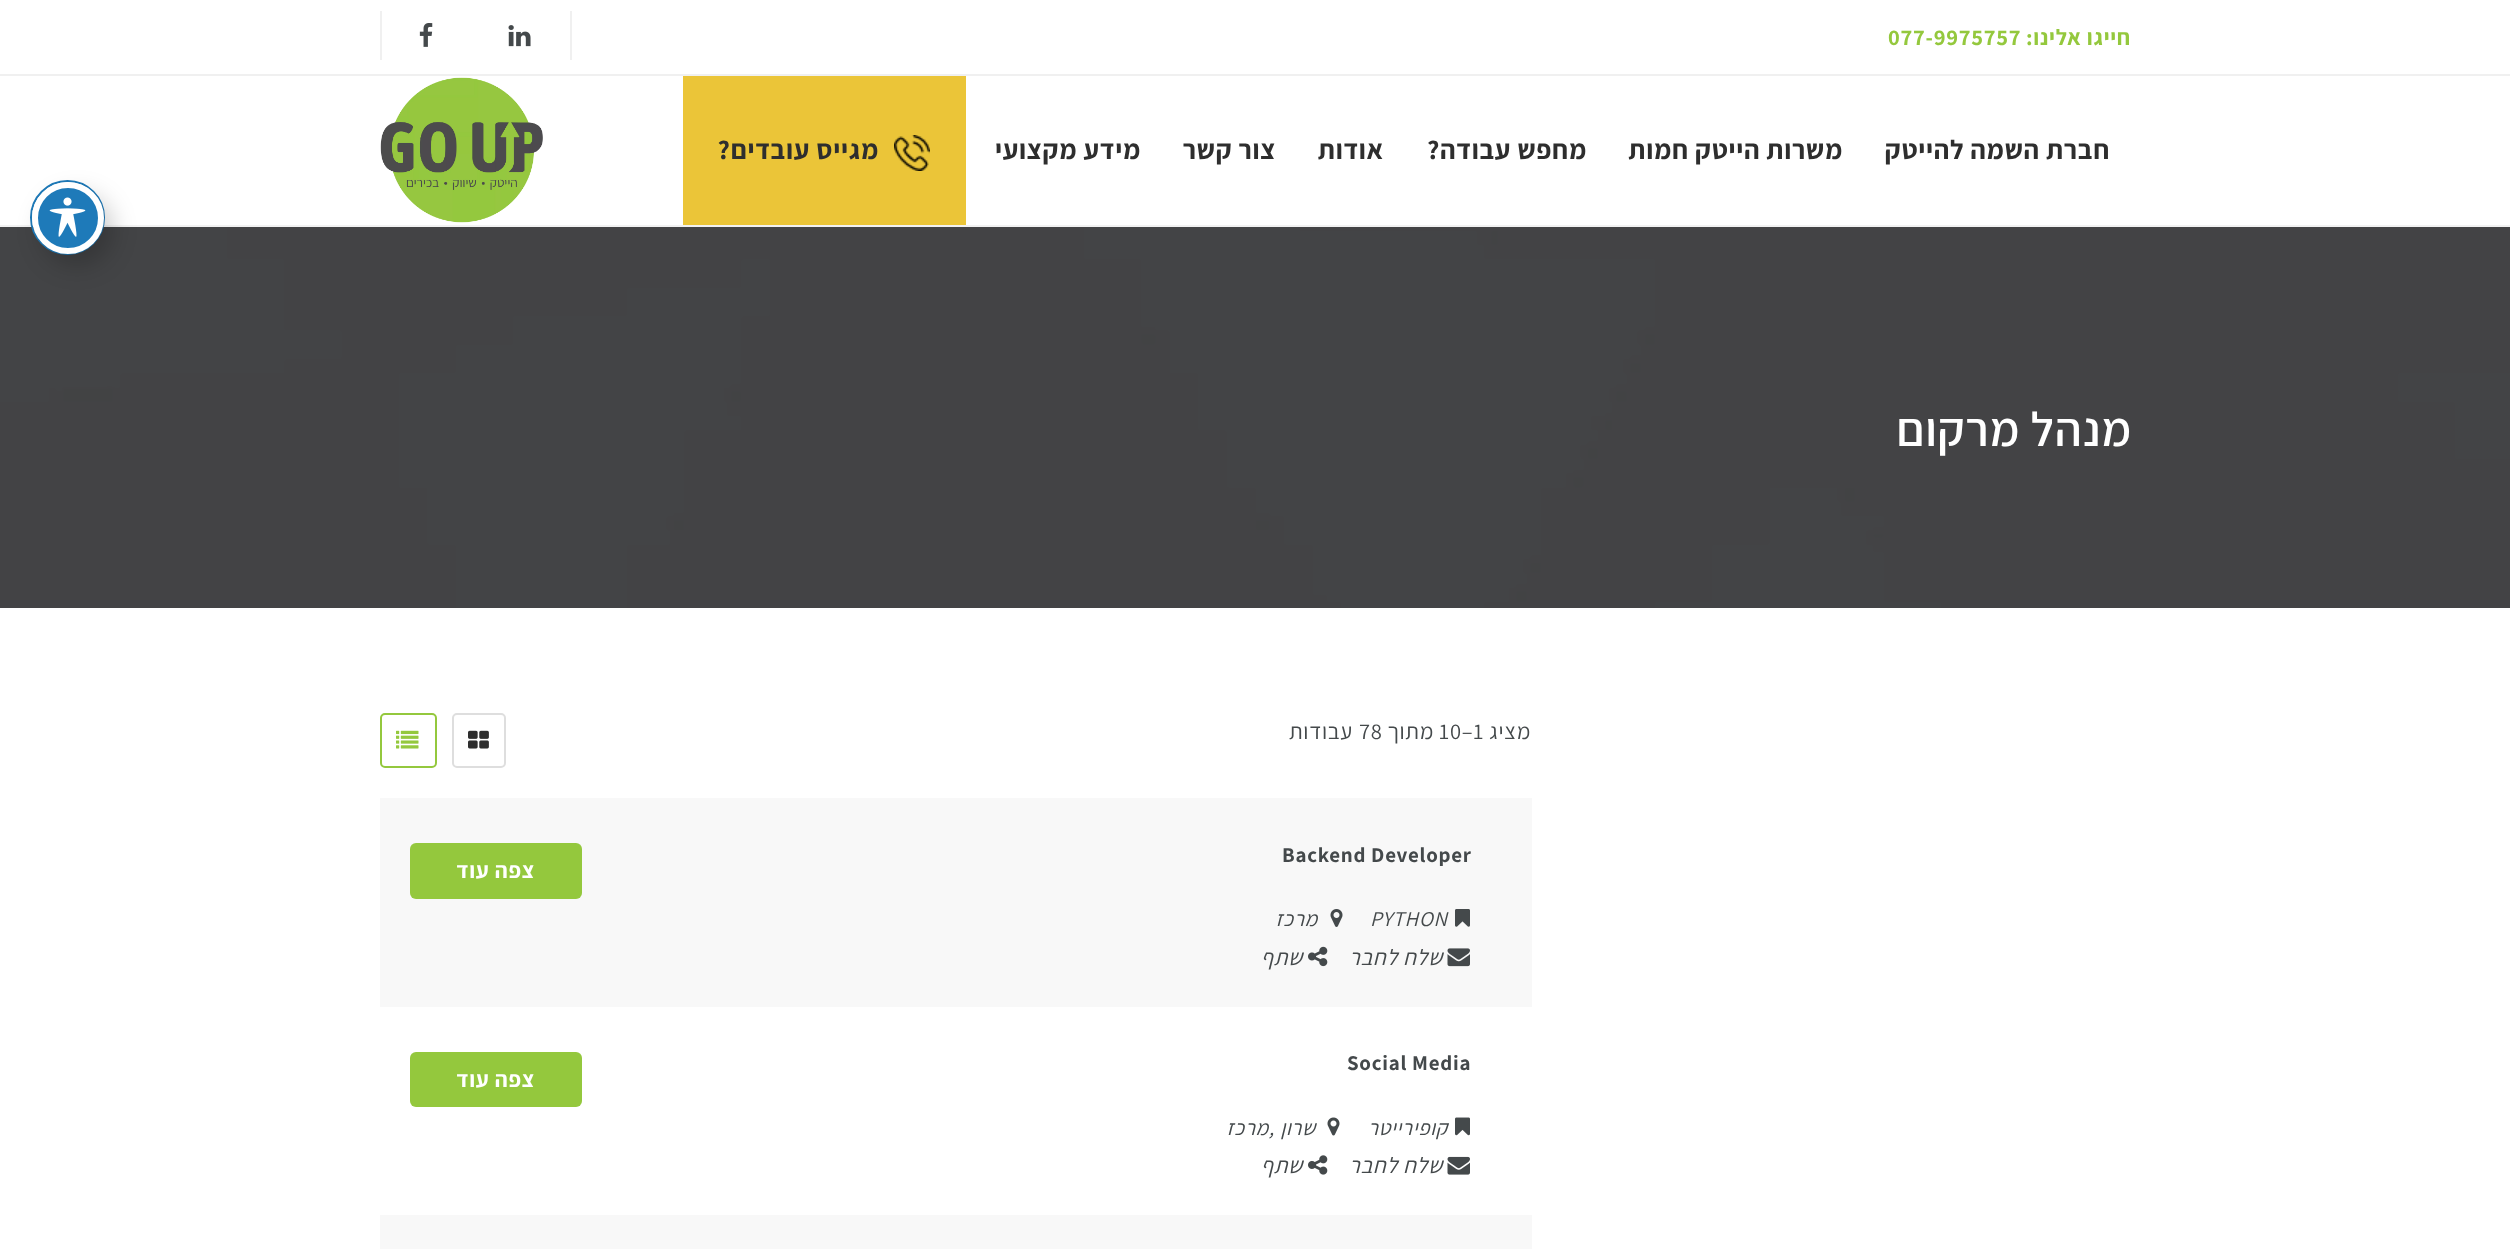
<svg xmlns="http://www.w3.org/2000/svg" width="2510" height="1249">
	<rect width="100%" height="100%" fill="#FFFFFF" />
	<rect x="0" y="74" width="2510" height="2" fill="#F0F0F0" />
	<text x="2131" y="45" font-family="Assistant" font-size="22.5" font-weight="700" letter-spacing="0.75" direction="rtl" fill="#94C83D">חייגו אלינו:</text>
	<text x="1888" y="45" font-family="Assistant" font-size="22.5" font-weight="700" letter-spacing="0.75" fill="#94C83D">077-9975757</text>
	<rect x="570" y="11" width="2" height="49" fill="#F0F0F0" />
	<image x="508" y="25" width="23" height="22" href="assets/img1.png" />
	<rect x="380" y="11" width="2" height="49" fill="#F0F0F0" />
	<image x="419" y="23" width="14" height="24" href="assets/img2.png" />
	<rect x="0" y="225" width="2510" height="2" fill="#F2F2F2" />
	<g font-family="Assistant" font-size="27" font-weight="700" letter-spacing="0.75" direction="rtl" fill="#2E2E2E">
		<text x="2110" y="159">חברת השמה להייטק</text>
		<text x="1843" y="159">משרות הייטק חמות</text>
		<text x="1587" y="159">מחפש עבודה?</text>
		<text x="1384" y="159">אודות</text>
		<text x="1276" y="159">צור קשר</text>
		<text x="1141" y="159">מידע מקצועי</text>
	</g>
	<rect x="683" y="76" width="283" height="149" fill="#EBC538" />
	<image x="894" y="135" width="36" height="36" href="assets/img3.png" />
	<text x="879" y="159" font-family="Assistant" font-size="27" font-weight="700" letter-spacing="0.75" direction="rtl" fill="#2E2E2E">מגייס עובדים?</text>
	<image x="380" y="77" width="163" height="146" href="assets/img4.png" />
	<image x="0" y="227" width="2510" height="381" href="assets/img5.png" />
	<text x="2132" y="446" font-family="Assistant" font-size="48.25" font-weight="600" letter-spacing="0.75" direction="rtl" fill="#FFFFFF">מנהל מרקום</text>
	<text x="1531" y="739" font-family="Assistant" font-size="22.5" letter-spacing="0.75" direction="rtl" fill="#44494B">מציג</text>
	<text x="1439" y="739" font-family="Assistant" font-size="22.5" letter-spacing="0.75" fill="#44494B">10–1</text>
	<text x="1434" y="739" font-family="Assistant" font-size="22.5" letter-spacing="0.75" direction="rtl" fill="#44494B">מתוך</text>
	<text x="1359" y="739" font-family="Assistant" font-size="22.5" letter-spacing="0.75" fill="#44494B">78</text>
	<text x="1353" y="739" font-family="Assistant" font-size="22.5" letter-spacing="0.75" direction="rtl" fill="#44494B">עבודות</text>
	<rect x="453" y="714" width="52" height="53" rx="4" fill="none" stroke="#DEDEDE" stroke-width="2" />
	<image x="468" y="730" width="21" height="19" href="assets/img6.png" />
	<rect x="381" y="714" width="55" height="53" rx="4" fill="none" stroke="#94C83D" stroke-width="2" />
	<image x="396" y="730" width="23" height="19" href="assets/img7.png" />
	<rect x="380" y="798" width="1152" height="209" fill="#F8F8F8" />
	<text x="1282" y="862" font-family="Assistant" font-size="21" font-weight="700" letter-spacing="0.75" fill="#44494B">Backend Developer</text>
	<image x="1455" y="909" width="15" height="18" href="assets/img8.png" />
	<text x="1370" y="926" font-family="Assistant" font-size="21" font-style="italic" letter-spacing="0.75" fill="#44494B">PYTHON</text>
	<image x="1330" y="909" width="13" height="18" href="assets/img9.png" />
	<text x="1318" y="926" font-family="Assistant" font-size="21" font-style="italic" letter-spacing="0.75" direction="rtl" fill="#44494B">מרכז</text>
	<image x="1447" y="948" width="23" height="19" href="assets/img10.png" />
	<text x="1443" y="965" font-family="Assistant" font-size="22.5" font-style="italic" letter-spacing="0.75" direction="rtl" fill="#44494B">שלח לחבר</text>
	<image x="1308" y="946" width="20" height="21" href="assets/img11.png" />
	<text x="1303" y="965" font-family="Assistant" font-size="22.5" font-style="italic" letter-spacing="0.75" direction="rtl" fill="#44494B">שתף</text>
	<rect x="410" y="843" width="172" height="56" rx="6" fill="#94C83D" />
	<text x="535" y="878" font-family="Assistant" font-size="22.5" font-weight="700" letter-spacing="0.75" direction="rtl" fill="#FFFFFF">צפה עוד</text>
	<text x="1347" y="1070" font-family="Assistant" font-size="21" font-weight="700" letter-spacing="0.75" fill="#44494B">Social Media</text>
	<image x="1455" y="1117" width="15" height="19" href="assets/img12.png" />
	<text x="1448" y="1135" font-family="Assistant" font-size="21" font-style="italic" letter-spacing="0.75" direction="rtl" fill="#44494B">קופירייטר</text>
	<image x="1327" y="1117" width="13" height="19" href="assets/img13.png" />
	<text x="1316" y="1135" font-family="Assistant" font-size="21" font-style="italic" letter-spacing="0.75" direction="rtl" fill="#44494B">שרון</text>
	<text x="1269" y="1135" font-family="Assistant" font-size="21" font-style="italic" letter-spacing="0.75" fill="#44494B">,</text>
	<text x="1269" y="1135" font-family="Assistant" font-size="21" font-style="italic" letter-spacing="0.75" direction="rtl" fill="#44494B">מרכז</text>
	<image x="1447" y="1156" width="23" height="19" href="assets/img14.png" />
	<text x="1443" y="1173" font-family="Assistant" font-size="22.5" font-style="italic" letter-spacing="0.75" direction="rtl" fill="#44494B">שלח לחבר</text>
	<image x="1308" y="1155" width="20" height="20" href="assets/img15.png" />
	<text x="1303" y="1173" font-family="Assistant" font-size="22.5" font-style="italic" letter-spacing="0.75" direction="rtl" fill="#44494B">שתף</text>
	<rect x="410" y="1052" width="172" height="55" rx="6" fill="#94C83D" />
	<text x="535" y="1087" font-family="Assistant" font-size="22.5" font-weight="700" letter-spacing="0.75" direction="rtl" fill="#FFFFFF">צפה עוד</text>
	<rect x="380" y="1215" width="1152" height="34" fill="#F8F8F8" />
	<circle cx="67.5" cy="217.5" r="36.5" fill="none" stroke="#1E7AB9" stroke-width="2" />
	<rect x="41" y="194" width="72" height="72" rx="36" fill="#000000" fill-opacity="0.2" filter="blur(12px)" />
	<circle cx="68" cy="218" r="33" fill="#1E7AB9" stroke="#FFFFFF" stroke-width="6" />
	<image x="49" y="197" width="37" height="40" href="assets/img16.png" />
</svg>
